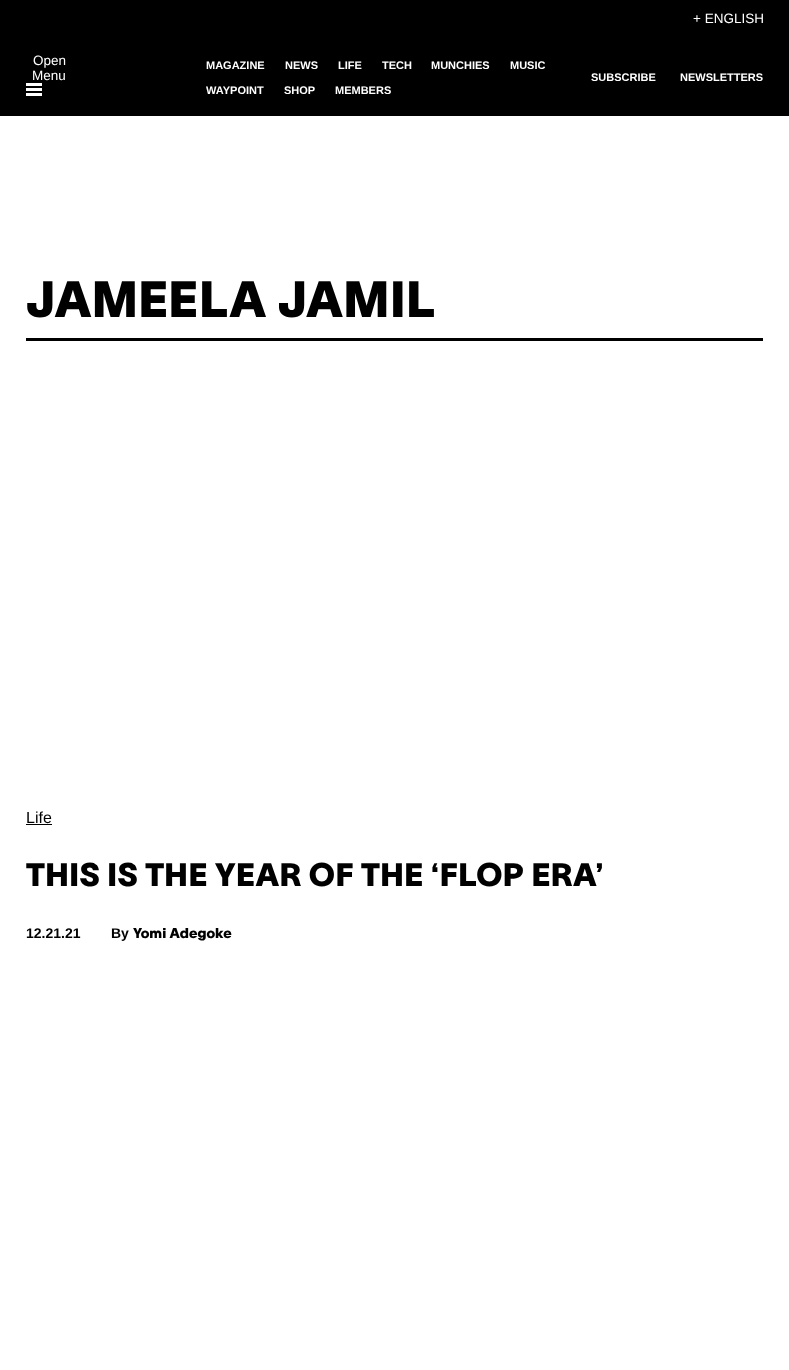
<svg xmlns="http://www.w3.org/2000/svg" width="789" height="1370">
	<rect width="100%" height="100%" fill="#FFFFFF" />
	<rect x="0" y="0" width="789" height="116" fill="#000000" />
	<g font-family="Liberation Sans" font-size="13.5" fill="#FFFFFF">
		<text x="693" y="23">+ ENGLISH</text>
		<text x="33" y="65">Open</text>
		<text x="32" y="80">Menu</text>
	</g>
	<image x="26" y="83" width="16" height="13" href="assets/img1.png" />
	<g font-family="Liberation Sans" font-size="11" font-weight="700" fill="#FFFFFF">
		<text x="206" y="69">MAGAZINE</text>
		<text x="285" y="69">NEWS</text>
		<text x="338" y="69">LIFE</text>
		<text x="382" y="69">TECH</text>
		<text x="431" y="69">MUNCHIES</text>
		<text x="510" y="69">MUSIC</text>
		<text x="206" y="94">WAYPOINT</text>
		<text x="284" y="94">SHOP</text>
		<text x="335" y="94">MEMBERS</text>
		<text x="591" y="81">SUBSCRIBE</text>
		<text x="680" y="81">NEWSLETTERS</text>
	</g>
	<rect x="26" y="338" width="737" height="3" fill="#000000" />
	<text x="26" y="317" font-family="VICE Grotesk" font-size="50" font-weight="900" fill="#000000">JAMEELA JAMIL</text>
	<text x="26" y="823" font-family="Liberation Sans" font-size="16" fill="#000000">Life</text>
	<rect x="26" y="824" width="26" height="1" fill="#000000" />
	<text x="26" y="886" font-family="VICE Grotesk" font-size="32" font-weight="900" fill="#000000">THIS IS THE YEAR OF THE ‘FLOP ERA’</text>
	<g font-family="Liberation Sans" font-size="14" font-weight="700" fill="#000000">
		<text x="26" y="938">12.21.21</text>
		<text x="111" y="938">By</text>
	</g>
	<text x="133" y="938" font-family="VICE Grotesk" font-size="14" font-weight="900" fill="#000000">Yomi Adegoke</text>
</svg>
